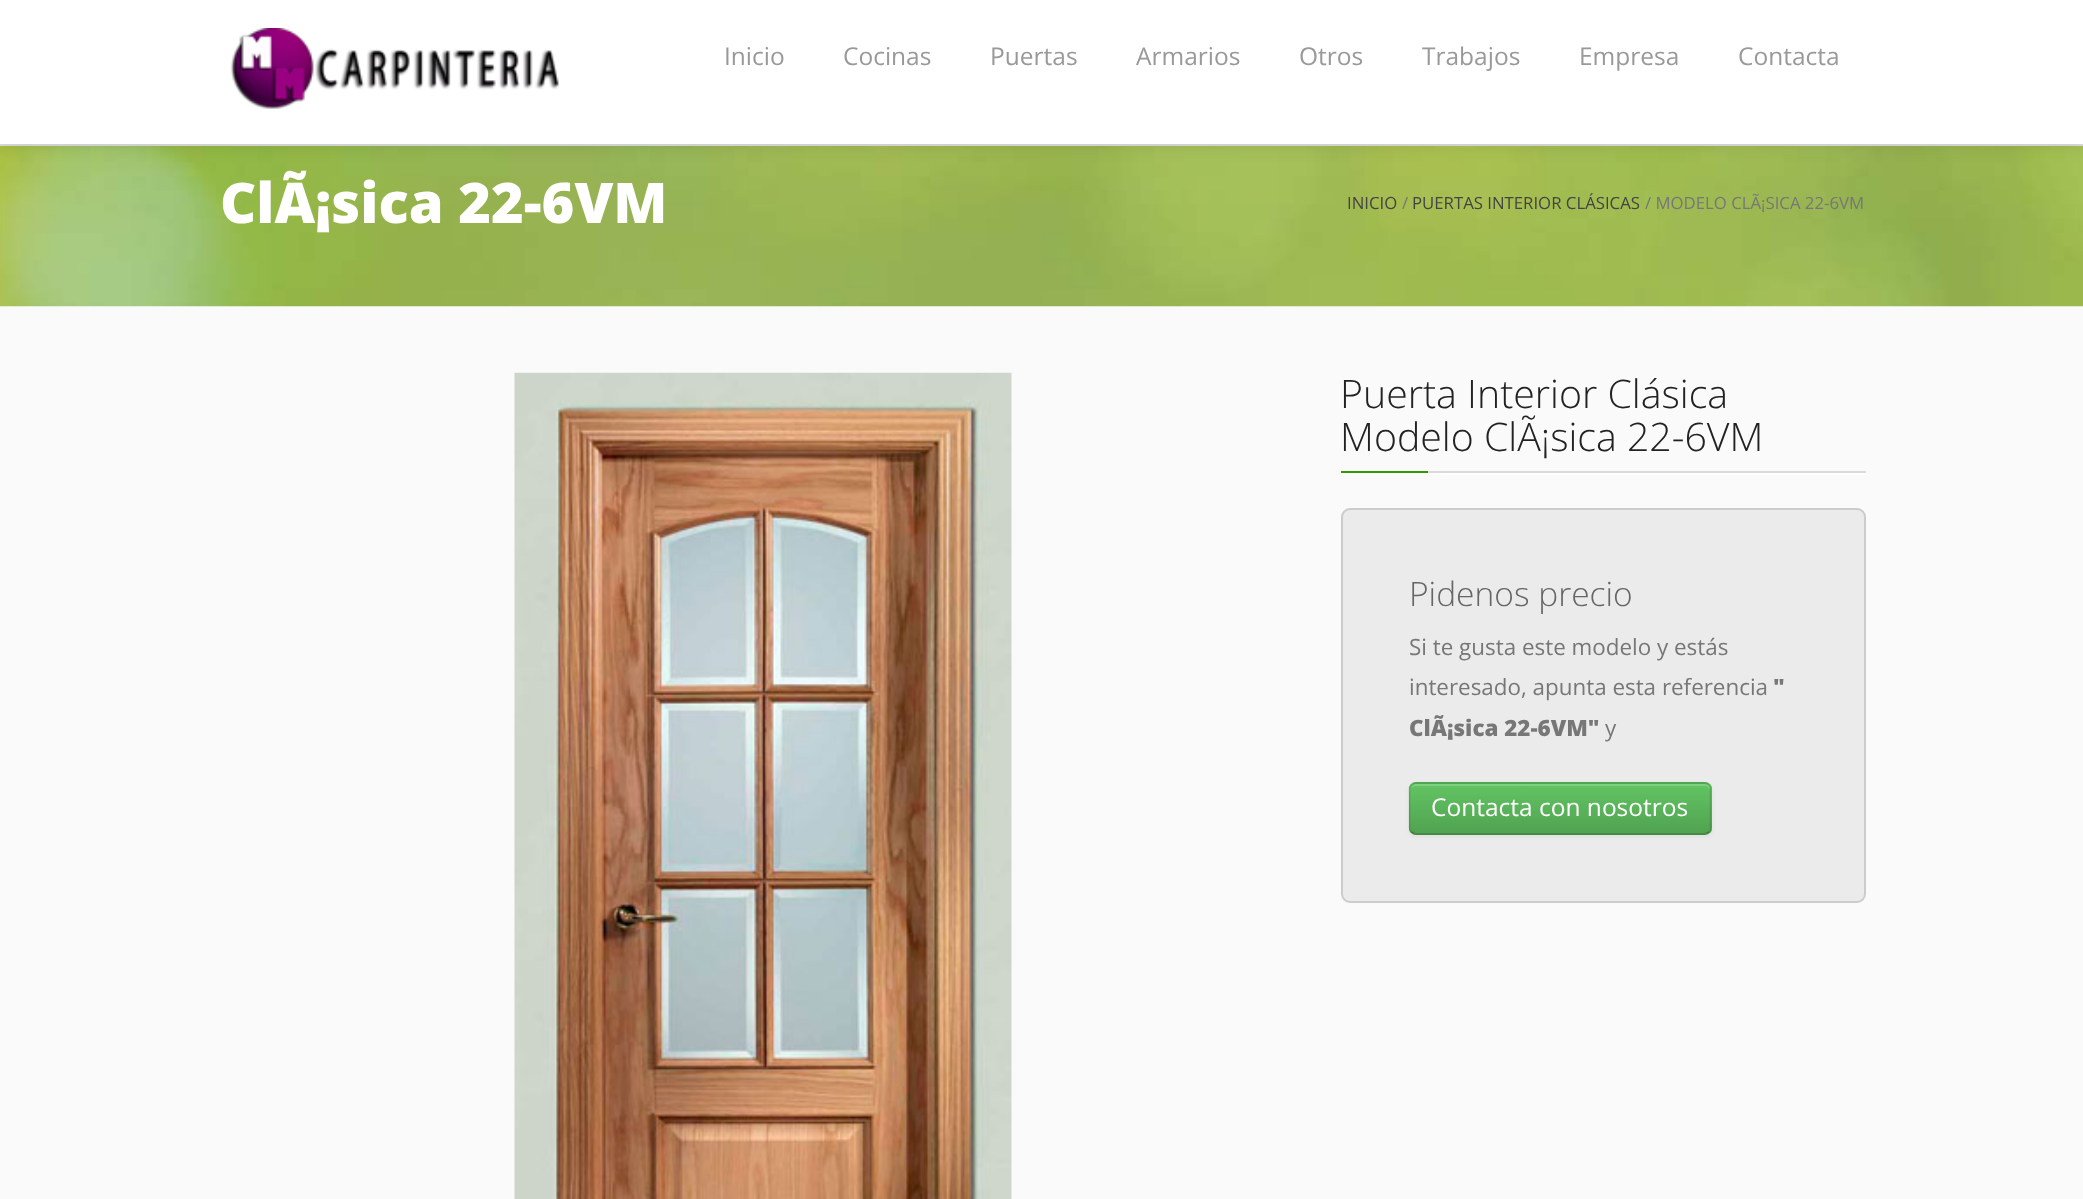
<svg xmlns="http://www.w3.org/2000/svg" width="2083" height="1199">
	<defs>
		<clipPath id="clip1"><rect x="1409" y="782" width="303" height="53" rx="7" /></clipPath>
		<linearGradient id="g1" gradientUnits="userSpaceOnUse" x1="1560" y1="784" x2="1560" y2="833"><stop offset="0" stop-color="#62C462" /><stop offset="1" stop-color="#51A351" /></linearGradient>
	</defs>
	<rect width="100%" height="100%" fill="#FAFAFA" />
	<rect x="0" y="144" width="2083" height="2" fill="#DDDDDD" />
	<image x="0" y="146" width="2083" height="161" href="assets/img2.png" />
	<rect x="0" y="2" width="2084" height="143" fill="#000000" fill-opacity="0.1" filter="blur(9px)" />
	<rect x="0" y="0" width="2083" height="144" fill="#FFFFFF" />
	<image x="230" y="28" width="330" height="81" href="assets/img1.png" />
	<g font-family="Open Sans" font-size="24.5" fill="#999999">
		<text x="724" y="65">Inicio</text>
		<text x="843" y="65">Cocinas</text>
		<text x="990" y="65">Puertas</text>
		<text x="1136" y="65">Armarios</text>
		<text x="1299" y="65">Otros</text>
		<text x="1422" y="65">Trabajos</text>
		<text x="1579" y="65">Empresa</text>
		<text x="1738" y="65">Contacta</text>
	</g>
	<text x="220" y="223" font-family="Open Sans" font-size="56" font-weight="800" fill="#FFFFFF">ClÃ¡sica 22-6VM</text>
	<text x="1347" y="209" font-family="Open Sans" font-size="16.75" fill="#444444">INICIO</text>
	<text x="1402" y="209" font-family="Open Sans" font-size="16.75" fill="#777777">/</text>
	<text x="1412" y="209" font-family="Open Sans" font-size="16.75" fill="#444444">PUERTAS INTERIOR CLÁSICAS</text>
	<text x="1645" y="209" font-family="Open Sans" font-size="16.75" fill="#777777">/ MODELO CLÃ¡SICA 22-6VM</text>
	<image x="514" y="372" width="498" height="827" href="assets/img3.png" />
	<g font-family="Open Sans" font-size="39.25" font-weight="300" fill="#222222">
		<text x="1340" y="408">Puerta Interior Clásica</text>
		<text x="1340" y="451">Modelo ClÃ¡sica 22-6VM</text>
	</g>
	<rect x="1428" y="471" width="438" height="2" fill="#DADADA" />
	<rect x="1341" y="473" width="525" height="2" fill="#FFFFFF" />
	<rect x="1341" y="471" width="87" height="2" fill="#339900" />
	<rect x="1342" y="509" width="523" height="393" rx="8" fill="#EBEBEB" stroke="#CCCCCC" stroke-width="2" />
	<text x="1409" y="606" font-family="Open Sans" font-size="33.5" font-weight="300" fill="#666666">Pidenos precio</text>
	<g font-family="Open Sans" font-size="22.4" fill="#777777">
		<text x="1409" y="655">Si te gusta este modelo y estás</text>
		<text x="1409" y="695">interesado, apunta esta referencia</text>
	</g>
	<g font-family="Open Sans" font-size="22.4" font-weight="800" fill="#777777">
		<text x="1773" y="695">"</text>
		<text x="1409" y="736">ClÃ¡sica 22-6VM"</text>
	</g>
	<text x="1605" y="736" font-family="Open Sans" font-size="22.4" fill="#777777">y</text>
	<rect x="1409" y="784" width="303" height="53" rx="7" fill="#000000" fill-opacity="0.05" filter="blur(2px)" />
	<rect x="1409" y="782" width="303" height="53" rx="7" fill="#5BB75B" />
	<g clip-path="url(#clip1)">
		<rect x="1409" y="784" width="303" height="49" fill="url(#g1)" />
	</g>
	<path d="M1416 786H1704C1707 786 1710 788 1710 791V789C1710 786 1708 784 1705 784H1416C1414 784 1411 786 1411 788C1412 787 1414 786 1416 786Z" fill="#FFFFFF" fill-opacity="0.2" />
	<path d="M1709 832C1707.5 833 1706 834 1704.5 834H1416C1414 834 1412.5 833 1411.5 832" fill="none" stroke="#000000" stroke-opacity="0.25" stroke-width="1.8" />
	<path d="M1411.5 832C1410.5 831 1409.5 829.5 1409.5 828V789C1409.5 787.5 1410.5 786 1411.5 785C1412.5 784 1414 783 1416 783H1704.5C1706 783 1707.5 784 1709 785C1710 786 1710.5 787.5 1710.5 789V828C1710.5 829.5 1710 831 1709 832" fill="none" stroke="#000000" stroke-opacity="0.1" stroke-width="1.8" />
	<text x="1431" y="816" font-family="Open Sans" font-size="24.5" fill="#FFFFFF">Contacta con nosotros</text>
</svg>
